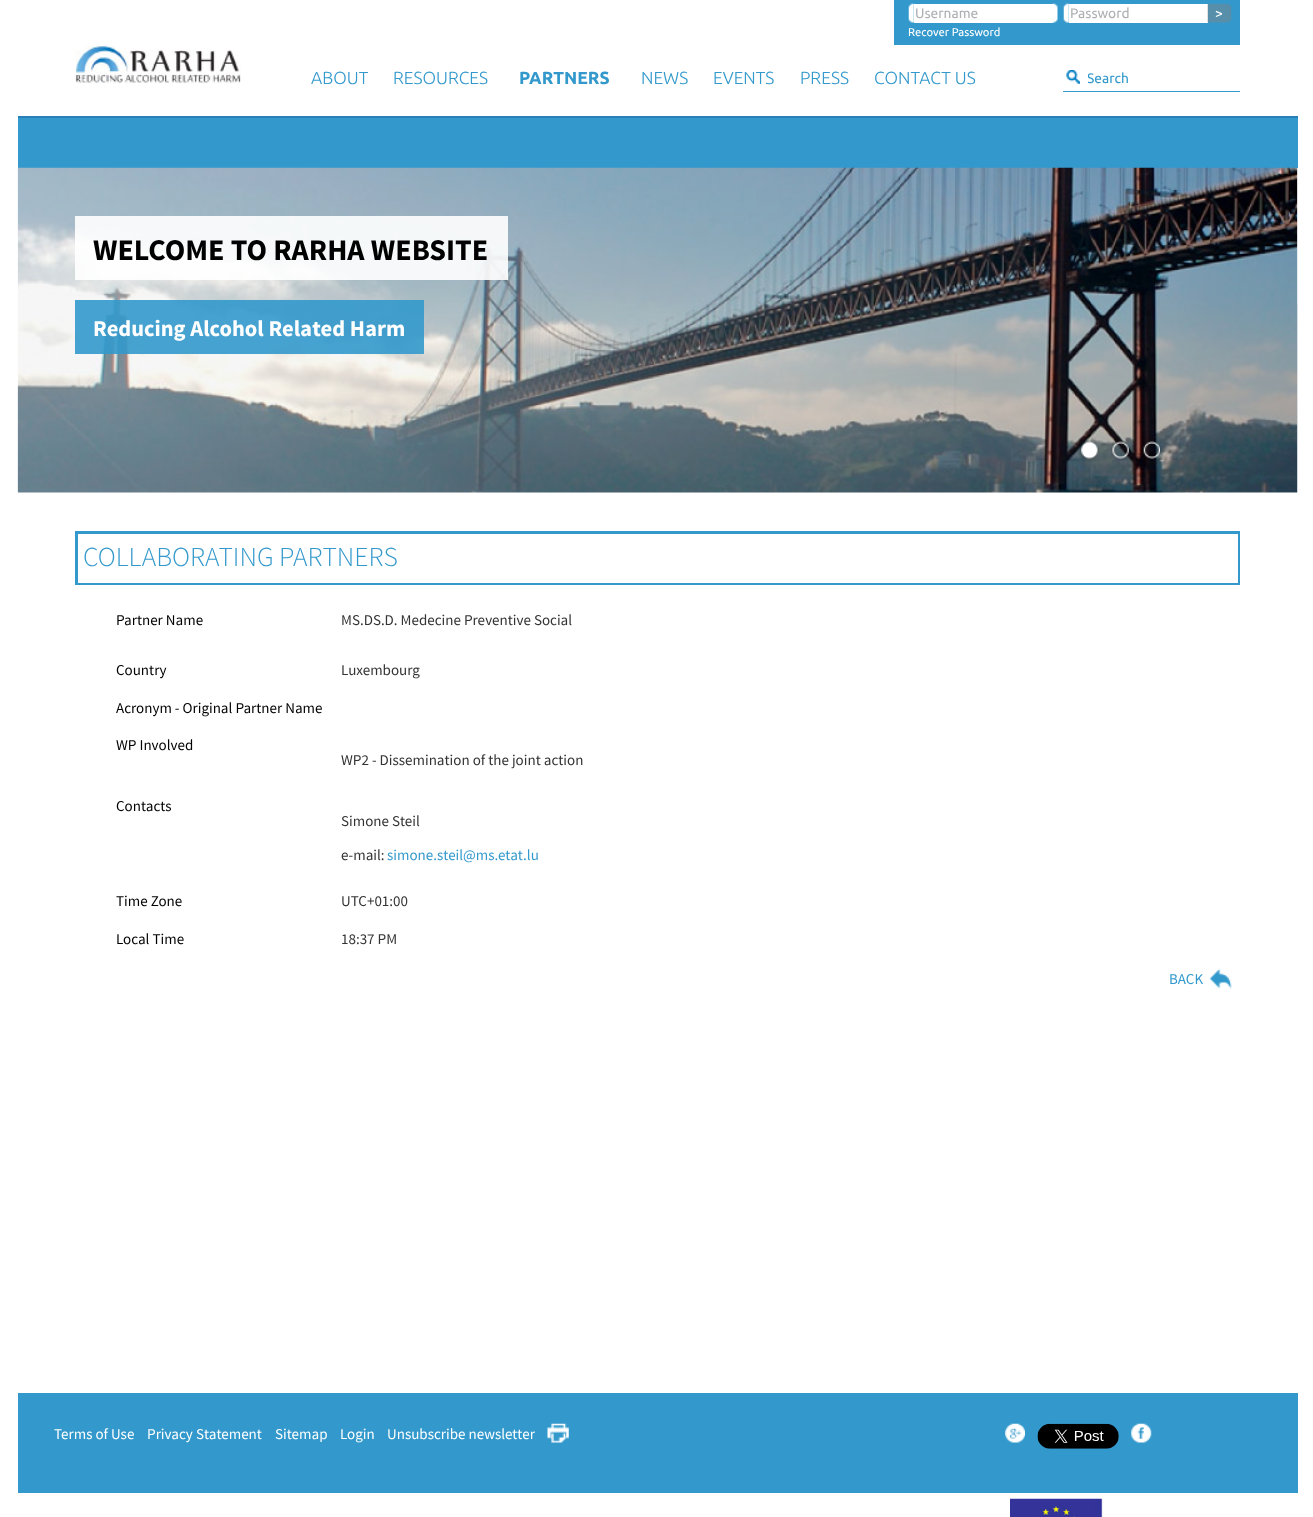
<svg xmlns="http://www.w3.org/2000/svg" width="1313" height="1517">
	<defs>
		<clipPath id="clip1"><rect x="1088" y="70" width="150" height="15" /></clipPath>
	</defs>
	<rect width="100%" height="100%" fill="#FFFFFF" />
	<rect x="894" y="0" width="346" height="45" fill="#3399CC" />
	<image x="908" y="3" width="6" height="20" href="assets/img1.png" />
	<rect x="914" y="4" width="139" height="19" fill="#FFFFFF" />
	<text x="915" y="18" font-family="Ubuntu" font-size="13.75" fill="#AEB1B3">Username</text>
	<image x="1052" y="3" width="6" height="20" href="assets/img2.png" />
	<image x="1063" y="3" width="6" height="20" href="assets/img1.png" />
	<rect x="1069" y="4" width="139" height="19" fill="#FFFFFF" />
	<text x="1070" y="18" font-family="Ubuntu" font-size="13.75" fill="#AEB1B3">Password</text>
	<image x="1207" y="3" width="25" height="20" href="assets/img3.png" />
	<text x="1215" y="18" font-family="Ubuntu" font-size="13.75" fill="#FFFFFF">&gt;</text>
	<text x="908" y="36" font-family="Ubuntu" font-size="11.25" fill="#FFFFFF">Recover Password</text>
	<image x="75" y="45" width="166" height="39" href="assets/img4.png" />
	<g font-family="Ubuntu" font-size="17.5" font-weight="300" fill="#3399CC">
		<text x="311" y="84">ABOUT</text>
		<text x="393" y="84">RESOURCES</text>
	</g>
	<text x="519" y="84" font-family="Ubuntu" font-size="17.5" font-weight="700" fill="#3399CC">PARTNERS</text>
	<g font-family="Ubuntu" font-size="17.5" font-weight="300" fill="#3399CC">
		<text x="641" y="84">NEWS</text>
		<text x="713" y="84">EVENTS</text>
		<text x="800" y="84">PRESS</text>
	</g>
	<rect x="18" y="116" width="1280" height="2" fill="#297FB8" />
	<text x="874" y="84" font-family="Ubuntu" font-size="17.5" font-weight="300" fill="#3399CC">CONTACT US</text>
	<image x="1066" y="70" width="14" height="14" href="assets/img5.png" />
	<rect x="1063" y="91" width="177" height="1" fill="#3399CC" />
	<g clip-path="url(#clip1)">
		<text x="1087" y="83" font-family="Ubuntu" font-size="13.75" fill="#3399CC">Search</text>
	</g>
	<rect x="18" y="118" width="1280" height="50" fill="#3399CC" />
	<image x="17" y="167" width="1281" height="326" href="assets/img6.png" />
	<rect x="75" y="216" width="433" height="64" fill="#FFFFFF" fill-opacity="0.9" />
	<text x="93" y="260" font-family="Source Sans Pro" font-size="30" font-weight="700" fill="#000000">WELCOME TO RARHA WEBSITE</text>
	<rect x="75" y="300" width="349" height="54" fill="#3399CC" fill-opacity="0.9" />
	<text x="93" y="336" font-family="Source Sans Pro" font-size="22.5" font-weight="700" fill="#FFFFFF">Reducing Alcohol Related Harm</text>
	<image x="1297" y="167" width="1" height="326" href="assets/img7.png" />
	<image x="1079" y="440" width="21" height="22" href="assets/img8.png" />
	<image x="1111" y="441" width="18" height="20" href="assets/img9.png" />
	<image x="1143" y="441" width="19" height="18" href="assets/img10.png" />
	<rect x="76.5" y="532.5" width="1162" height="51" fill="none" stroke="#3399CC" stroke-width="3" />
	<rect x="78" y="534" width="1160" height="49" fill="#FFFFFF" />
	<text x="83" y="566" font-family="Source Sans Pro" font-size="27.5" font-weight="300" fill="#3399CC">COLLABORATING PARTNERS</text>
	<text x="116" y="625" font-family="Source Sans Pro" font-size="15" fill="#000000">Partner Name</text>
	<text x="341" y="625" font-family="Source Sans Pro" font-size="15" fill="#333333">MS.DS.D. Medecine Preventive Social</text>
	<text x="116" y="675" font-family="Source Sans Pro" font-size="15" fill="#000000">Country</text>
	<text x="341" y="675" font-family="Source Sans Pro" font-size="15" fill="#333333">Luxembourg</text>
	<g font-family="Source Sans Pro" font-size="15" fill="#000000">
		<text x="116" y="713">Acronym - Original Partner Name</text>
		<text x="116" y="750">WP Involved</text>
	</g>
	<text x="341" y="765" font-family="Source Sans Pro" font-size="15" fill="#333333">WP2 - Dissemination of the joint action</text>
	<text x="116" y="811" font-family="Source Sans Pro" font-size="15" fill="#000000">Contacts</text>
	<g font-family="Source Sans Pro" font-size="15" fill="#333333">
		<text x="341" y="826">Simone Steil</text>
		<text x="341" y="860">e-mail:</text>
	</g>
	<text x="387" y="860" font-family="Source Sans Pro" font-size="15" fill="#3399CC">simone.steil@ms.etat.lu</text>
	<text x="116" y="906" font-family="Source Sans Pro" font-size="15" fill="#000000">Time Zone</text>
	<text x="341" y="906" font-family="Source Sans Pro" font-size="15" fill="#333333">UTC+01:00</text>
	<text x="116" y="944" font-family="Source Sans Pro" font-size="15" fill="#000000">Local Time</text>
	<text x="341" y="944" font-family="Source Sans Pro" font-size="15" fill="#333333">18:37 PM</text>
	<text x="1169" y="984" font-family="Source Sans Pro" font-size="15" fill="#3399CC">BACK</text>
	<image x="1209" y="968" width="23" height="21" href="assets/img11.png" />
	<rect x="18" y="1393" width="1280" height="100" fill="#3399CC" />
	<g font-family="Source Sans Pro" font-size="15" fill="#FFFFFF">
		<text x="54" y="1439">Terms of Use</text>
		<text x="147" y="1439">Privacy Statement</text>
		<text x="275" y="1439">Sitemap</text>
		<text x="340" y="1439">Login</text>
		<text x="387" y="1439">Unsubscribe newsletter</text>
	</g>
	<image x="547" y="1423" width="22" height="20" href="assets/img12.png" />
	<image x="1005" y="1423" width="20" height="20" href="assets/img13.png" />
	<image x="1037" y="1423" width="82" height="26" href="assets/img14.png" />
	<image x="1131" y="1423" width="21" height="20" href="assets/img15.png" />
	<image x="1010" y="1498" width="93" height="19" href="assets/img16.png" />
</svg>
